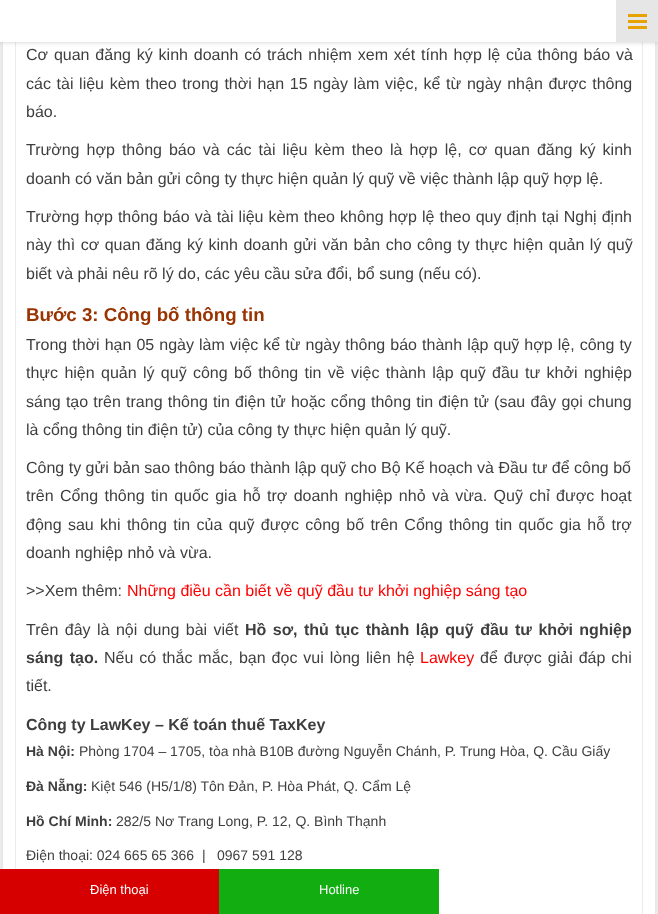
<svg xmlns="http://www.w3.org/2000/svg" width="658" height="914">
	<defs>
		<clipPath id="clip1"><path d="M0 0H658V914H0ZM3-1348H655V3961H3Z" clip-rule="evenodd" /></clipPath>
	</defs>
	<rect width="100%" height="100%" fill="#FFFFFF" />
	<g clip-path="url(#clip1)">
		<rect x="3" y="-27" width="652" height="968" fill="#000000" fill-opacity="0.2" filter="blur(9px)" />
	</g>
	<rect x="15.5" y="-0.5" width="627" height="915" fill="none" stroke="#EBEBEB" />
	<rect x="0" y="0" width="658" height="42" fill="#000000" fill-opacity="0.2" filter="blur(2.5px)" />
	<rect x="0" y="0" width="616" height="42" fill="#FFFFFF" />
	<rect x="616" y="0" width="42" height="42" fill="#E6E6E6" />
	<rect x="628" y="14" width="19" height="3" fill="#E7A200" />
	<rect x="628" y="20" width="19" height="3" fill="#E7A200" />
	<rect x="628" y="26" width="19" height="3" fill="#E7A200" />
	<g font-family="Liberation Sans" font-size="16" fill="#3E3E3E">
		<text x="26" y="60" word-spacing="1.4">Cơ quan đăng ký kinh doanh có trách nhiệm xem xét tính hợp lệ của thông báo và</text>
		<text x="26" y="89" word-spacing="1.2">các tài liệu kèm theo trong thời hạn 15 ngày làm việc, kể từ ngày nhận được thông</text>
		<text x="26" y="117">báo.</text>
		<text x="26" y="155" word-spacing="2.6">Trường hợp thông báo và các tài liệu kèm theo là hợp lệ, cơ quan đăng ký kinh</text>
		<text x="26" y="184">doanh có văn bản gửi công ty thực hiện quản lý quỹ về việc thành lập quỹ hợp lệ.</text>
		<text x="26" y="222" word-spacing="0.6">Trường hợp thông báo và tài liệu kèm theo không hợp lệ theo quy định tại Nghị định</text>
		<text x="26" y="250" word-spacing="1.1">này thì cơ quan đăng ký kinh doanh gửi văn bản cho công ty thực hiện quản lý quỹ</text>
		<text x="26" y="279">biết và phải nêu rõ lý do, các yêu cầu sửa đổi, bổ sung (nếu có).</text>
	</g>
	<text x="26" y="321" font-family="Liberation Sans" font-size="18.7" font-weight="700" fill="#993300">Bước 3: Công bố thông tin</text>
	<g font-family="Liberation Sans" font-size="16" fill="#3E3E3E">
		<text x="26" y="350" word-spacing="0.6">Trong thời hạn 05 ngày làm việc kể từ ngày thông báo thành lập quỹ hợp lệ, công ty</text>
		<text x="26" y="378" word-spacing="1.9">thực hiện quản lý quỹ công bố thông tin về việc thành lập quỹ đầu tư khởi nghiệp</text>
		<text x="26" y="407" word-spacing="0.75">sáng tạo trên trang thông tin điện tử hoặc c</text>
		<text x="339" y="407">ổ</text>
		<text x="348" y="407" word-spacing="0.75">ng thông tin điện tử (sau đây gọi chung</text>
		<text x="26" y="435">là cổng thông tin điện tử) của công ty thực hiện quản lý quỹ.</text>
		<text x="26" y="473">Công ty gửi bản sao thông báo thành lập quỹ cho Bộ Kế hoạch và Đầu tư để công bố</text>
		<text x="26" y="501" word-spacing="1.9">trên Cổng thông tin quốc gia hỗ trợ doanh nghiệp nhỏ và vừa. Quỹ chỉ được hoạt</text>
		<text x="26" y="530" word-spacing="1.9">động sau khi thông tin của quỹ được công bố trên Cổng thông tin quốc gia hỗ trợ</text>
		<text x="26" y="558">doanh nghiệp nhỏ và vừa.</text>
		<text x="26" y="596">&gt;&gt;Xem thêm:</text>
	</g>
	<text x="127" y="596" font-family="Liberation Sans" font-size="16" fill="#FF0000">Những điều cần biết về quỹ đầu tư khởi nghiệp sáng tạo</text>
	<text x="26" y="635" word-spacing="2" font-family="Liberation Sans" font-size="16" fill="#3E3E3E">Trên đây là nội dung bài viết</text>
	<g font-family="Liberation Sans" font-size="16" font-weight="700" fill="#3E3E3E">
		<text x="245" y="635" word-spacing="2">Hồ sơ, thủ tục thành lập quỹ đầu tư khởi nghiệp</text>
		<text x="26" y="663" word-spacing="2">sáng tạo.</text>
	</g>
	<text x="104" y="663" word-spacing="1.5" font-family="Liberation Sans" font-size="16" fill="#3E3E3E">Nếu có thắc mắc, bạn đọc vui lòng liên hệ</text>
	<text x="420" y="663" font-family="Liberation Sans" font-size="16" fill="#FF0000">Lawkey</text>
	<g font-family="Liberation Sans" font-size="16" fill="#3E3E3E">
		<text x="480" y="663" word-spacing="1.5">để được giải đáp chi</text>
		<text x="26" y="691">tiết.</text>
	</g>
	<text x="26" y="730" font-family="Liberation Sans" font-size="16" font-weight="700" fill="#3E3E3E">Công ty LawKey – Kế toán thuế TaxKey</text>
	<text x="26" y="756" font-family="Liberation Sans" font-size="14" font-weight="700" fill="#3E3E3E">Hà Nội:</text>
	<text x="79" y="756" font-family="Liberation Sans" font-size="14" fill="#3E3E3E">Phòng 1704 – 1705, tòa nhà B10B đường Nguyễn Chánh, P. Trung Hòa, Q. Cầu Giấy</text>
	<text x="26" y="791" font-family="Liberation Sans" font-size="14" font-weight="700" fill="#3E3E3E">Đà Nẵng:</text>
	<text x="91" y="791" font-family="Liberation Sans" font-size="14" fill="#3E3E3E">Kiệt 546 (H5/1/8) Tôn Đản, P. Hòa Phát, Q. Cẩm Lệ</text>
	<text x="26" y="826" font-family="Liberation Sans" font-size="14" font-weight="700" fill="#3E3E3E">Hồ Chí Minh:</text>
	<g font-family="Liberation Sans" font-size="14" fill="#3E3E3E">
		<text x="116" y="826">282/5 Nơ Trang Long, P. 12, Q. Bình Thạnh</text>
		<text x="26" y="860">Điện thoại: 024 665 65 366</text>
		<text x="202" y="860">|</text>
		<text x="217" y="860">0967 591 128</text>
	</g>
	<rect x="0" y="869" width="219" height="45" fill="#D60000" />
	<text x="90" y="894" font-family="Liberation Sans" font-size="13" fill="#FFFFFF">Điện thoại</text>
	<rect x="219" y="869" width="220" height="45" fill="#11AD11" />
	<text x="319" y="894" font-family="Liberation Sans" font-size="13" fill="#FFFFFF">Hotline</text>
</svg>
